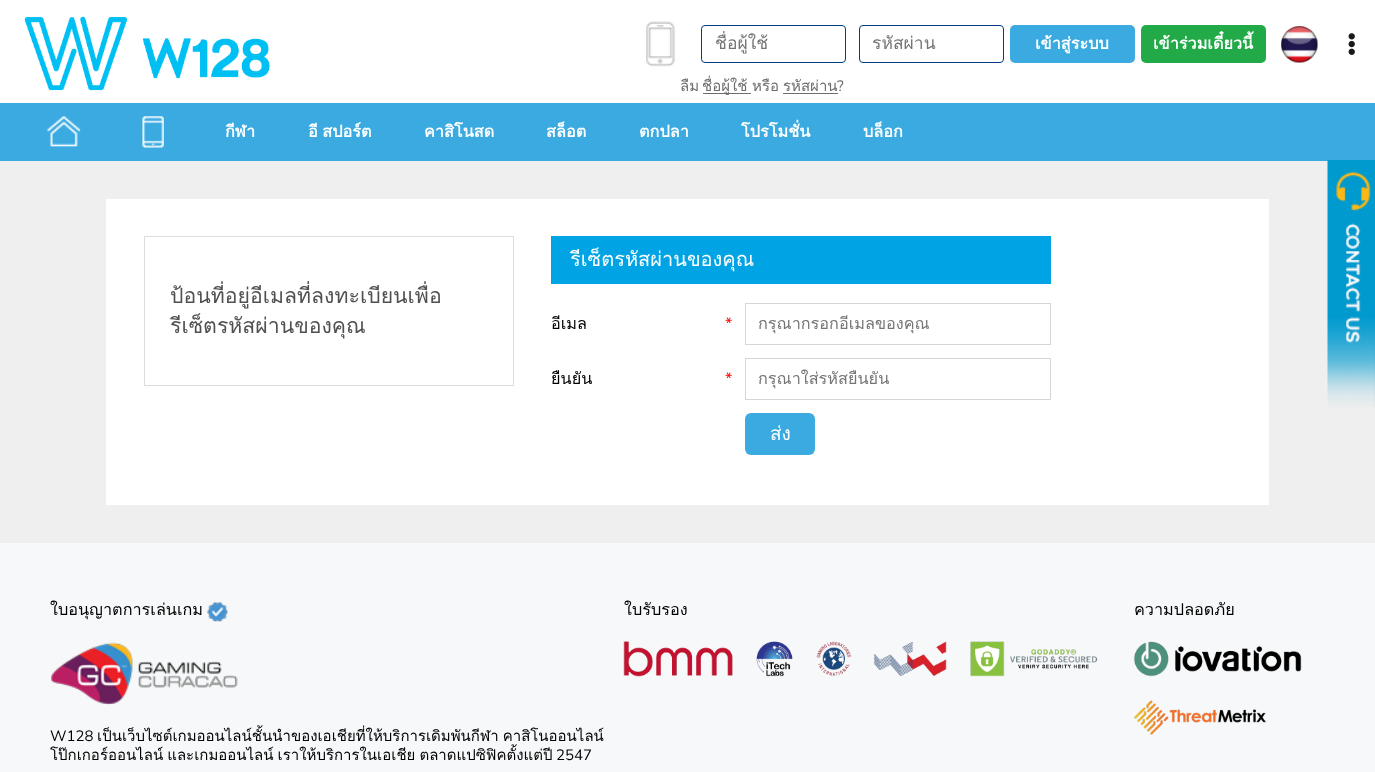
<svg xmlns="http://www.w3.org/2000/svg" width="1375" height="772">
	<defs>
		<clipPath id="clip1"><rect x="715" y="30" width="118" height="28" /></clipPath>
	</defs>
	<rect width="100%" height="100%" fill="#FFFFFF" />
	<image x="24" y="16" width="246" height="75" href="assets/img1.png" />
	<image x="646" y="21" width="30" height="46" href="assets/img2.png" />
	<rect x="701.5" y="25.5" width="144" height="37" rx="3.5" fill="none" stroke="#023C82" />
	<g clip-path="url(#clip1)">
		<text x="715" y="49" font-family="Loma" font-size="17.5" fill="#757575">ชื่อผู้ใช้</text>
	</g>
	<rect x="859.5" y="25.5" width="144" height="37" rx="3.5" fill="none" stroke="#023C82" />
	<text x="872" y="49" font-family="Loma" font-size="17.5" fill="#757575">รหัสผ่าน</text>
	<rect x="1010" y="25" width="125" height="38" rx="5" fill="#3BAAE1" />
	<text x="1035" y="49" font-family="Loma" font-size="16.25" font-weight="700" fill="#FFFFFF">เข้าสู่ระบบ</text>
	<rect x="1141" y="25" width="125" height="38" rx="5" fill="#22AA48" />
	<text x="1153" y="49" font-family="Loma" font-size="16.25" font-weight="700" fill="#FFFFFF">เข้าร่วมเดี๋ยวนี้</text>
	<image x="1281" y="26" width="37" height="37" href="assets/img3.png" />
	<image x="1348" y="33" width="7" height="22" href="assets/img4.png" />
	<text x="680" y="91" font-family="Loma" font-size="15" fill="#6D6D6D">ลืม</text>
	<rect x="703" y="93" width="48" height="1" fill="#6D6D6D" />
	<g font-family="Loma" font-size="15" fill="#6D6D6D">
		<text x="702" y="91">ชื่อผู้ใช้</text>
		<text x="752" y="91">หรือ</text>
		<text x="783" y="91">รหัสผ่าน</text>
	</g>
	<rect x="783" y="93" width="55" height="1" fill="#6D6D6D" />
	<text x="837" y="91" font-family="Nunito" font-size="15" fill="#6D6D6D">?</text>
	<rect x="0" y="103" width="1375" height="58" fill="#3BAAE1" />
	<image x="47" y="116" width="34" height="31" href="assets/img5.png" />
	<image x="142" y="116" width="22" height="32" href="assets/img6.png" />
	<g font-family="Loma" font-size="16.25" font-weight="700" fill="#FFFFFF">
		<text x="225" y="137">กีฬา</text>
		<text x="308" y="137" word-spacing="-1">อี สปอร์ต</text>
		<text x="424" y="137">คาสิโนสด</text>
		<text x="546" y="137">สล็อต</text>
		<text x="639" y="137">ตกปลา</text>
		<text x="741" y="137">โปรโมชั่น</text>
		<text x="863" y="137">บล็อก</text>
	</g>
	<rect x="0" y="161" width="1375" height="382" fill="#EFEFEF" />
	<rect x="106" y="199" width="1163" height="306" fill="#FFFFFF" />
	<rect x="144.5" y="236.5" width="369" height="149" fill="none" stroke="#DDDDDD" />
	<g font-family="Loma" font-size="21.25" fill="#505050">
		<text x="170" y="303">ป้อนที่อยู่อีเมลที่ลงทะเบียนเพื่อ</text>
		<text x="170" y="333">รีเซ็ตรหัสผ่านของคุณ</text>
	</g>
	<rect x="551" y="236" width="500" height="48" fill="#00A4E5" />
	<text x="570" y="266" font-family="Loma" font-size="20" fill="#FFFFFF">รีเซ็ตรหัสผ่านของคุณ</text>
	<text x="551" y="329" font-family="Loma" font-size="16.25" fill="#000000">อีเมล</text>
	<text x="725" y="329" font-family="Nunito" font-size="16.25" fill="#FF0000">*</text>
	<rect x="745.5" y="303.5" width="305" height="41" fill="none" stroke="#D6D6D6" />
	<text x="758" y="329" font-family="Loma" font-size="16.25" fill="#757575">กรุณากรอกอีเมลของคุณ</text>
	<text x="551" y="384" font-family="Loma" font-size="16.25" fill="#000000">ยืนยัน</text>
	<text x="725" y="384" font-family="Nunito" font-size="16.25" fill="#FF0000">*</text>
	<rect x="745.5" y="358.5" width="305" height="41" fill="none" stroke="#D6D6D6" />
	<text x="758" y="384" font-family="Loma" font-size="16.25" fill="#757575">กรุณาใส่รหัสยืนยัน</text>
	<rect x="745" y="413" width="70" height="42" rx="6" fill="#3BAAE1" />
	<text x="770" y="440" font-family="Loma" font-size="19" fill="#FFFFFF">ส่ง</text>
	<image x="1327" y="160" width="48" height="248" href="assets/img7.png" />
	<rect x="0" y="543" width="1375" height="229" fill="#F7F8F9" />
	<text x="50" y="615" font-family="Loma" font-size="16.25" fill="#000000">ใบอนุญาตการเล่นเกม</text>
	<image x="207" y="602" width="21" height="20" href="assets/img8.png" />
	<image x="51" y="642" width="187" height="63" href="assets/img9.png" />
	<text x="50" y="741" font-family="Nunito" font-size="15" fill="#000000">W128</text>
	<g font-family="Loma" font-size="15" fill="#000000">
		<text x="97" y="741" word-spacing="-1">เป็นเว็บไซต์เกมออนไลน์ชั้นนำของเอเชียที่ให้บริการเดิมพันกีฬา คาสิโนออนไลน์</text>
		<text x="50" y="760" word-spacing="-1">โป๊กเกอร์ออนไลน์ และเกมออนไลน์ เราให้บริการในเอเชีย ตลาดแปซิฟิคตั้งแต่ปี</text>
	</g>
	<text x="556" y="760" font-family="Nunito" font-size="15" fill="#000000">2547</text>
	<text x="624" y="615" font-family="Loma" font-size="16.25" fill="#000000">ใบรับรอง</text>
	<image x="623" y="641" width="110" height="36" href="assets/img10.png" />
	<image x="756" y="641" width="37" height="36" href="assets/img11.png" />
	<image x="816" y="641" width="36" height="36" href="assets/img12.png" />
	<image x="873" y="641" width="74" height="36" href="assets/img13.png" />
	<image x="970" y="641" width="128" height="36" href="assets/img14.png" />
	<text x="1134" y="615" font-family="Loma" font-size="16.25" fill="#000000">ความปลอดภัย</text>
	<image x="1133" y="641" width="169" height="36" href="assets/img15.png" />
	<image x="1133" y="700" width="133" height="35" href="assets/img16.png" />
</svg>
